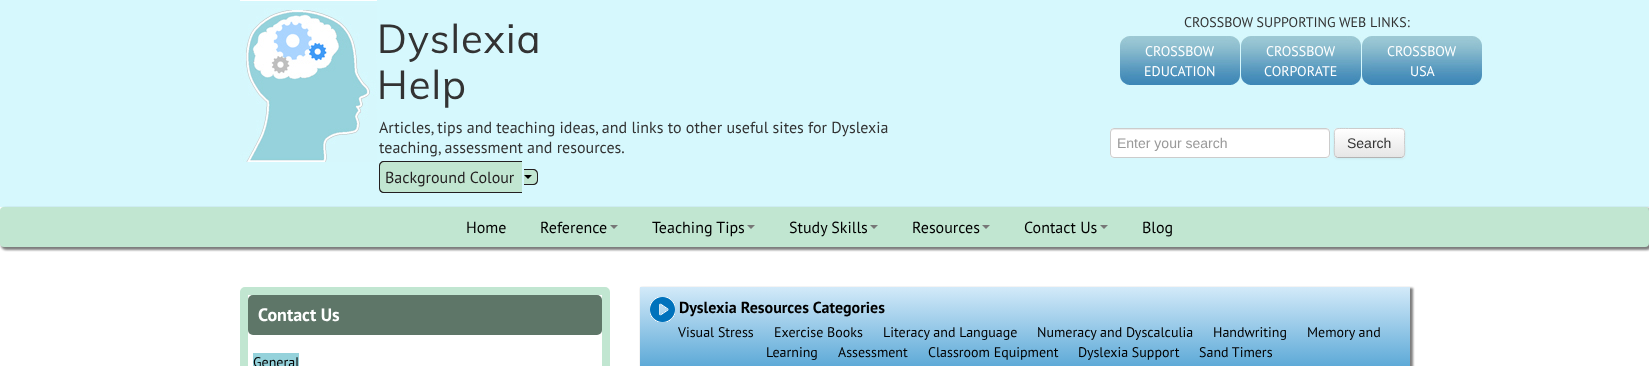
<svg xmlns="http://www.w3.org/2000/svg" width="1649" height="366">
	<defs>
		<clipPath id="clip1"><rect x="1334" y="128" width="71" height="30" rx="4" /></clipPath>
		<linearGradient id="g1" gradientUnits="userSpaceOnUse" x1="1370" y1="129" x2="1370" y2="157"><stop offset="0" stop-color="#FFFFFF" /><stop offset="1" stop-color="#E6E6E6" /></linearGradient>
		<linearGradient id="g2" gradientUnits="userSpaceOnUse" x1="1025" y1="287" x2="1025" y2="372"><stop offset="0" stop-color="#D3EAF9" /><stop offset="1" stop-color="#55A5D5" /></linearGradient>
	</defs>
	<rect width="100%" height="100%" fill="#FFFFFF" />
	<rect x="0" y="0" width="1649" height="207" fill="#D6F8FD" />
	<image x="240" y="0" width="137" height="162" href="assets/img1.png" />
	<g font-family="Muli" font-size="40" letter-spacing="1" fill="#333333">
		<text x="377" y="53">Dyslexia</text>
		<text x="377" y="99">Help</text>
	</g>
	<text x="1184" y="27" font-family="PT Sans" font-size="14" fill="#333333">CROSSBOW SUPPORTING WEB LINKS:</text>
	<image x="1120" y="36" width="120" height="49" href="assets/img2.png" />
	<g font-family="PT Sans" font-size="14" fill="#FFFFFF">
		<text x="1145" y="56">CROSSBOW</text>
		<text x="1144" y="76">EDUCATION</text>
	</g>
	<image x="1241" y="36" width="120" height="49" href="assets/img2.png" />
	<g font-family="PT Sans" font-size="14" fill="#FFFFFF">
		<text x="1266" y="56">CROSSBOW</text>
		<text x="1264" y="76">CORPORATE</text>
	</g>
	<image x="1362" y="36" width="120" height="49" href="assets/img2.png" />
	<g font-family="PT Sans" font-size="14" fill="#FFFFFF">
		<text x="1387" y="56">CROSSBOW</text>
		<text x="1410" y="76">USA</text>
	</g>
	<g font-family="PT Sans" font-size="16" fill="#333333">
		<text x="379" y="133">Articles, tips and teaching ideas, and links to other useful sites for Dyslexia</text>
		<text x="379" y="153">teaching, assessment and resources.</text>
	</g>
	<path d="M384 161H522V193H384C381 193 379 191 379 188V166C379 163 381 161 384 161Z" fill="#C1E6D1" />
	<path d="M384 161H522V193H384C381 193 379 191 379 188V166C379 163 381 161 384 161ZM384 162H522V192H384C382 192 380 190 380 188V166C380 164 382 162 384 162Z" fill="#231F20" fill-rule="evenodd" />
	<path d="M524 169H533C536 169 538 171 538 174V180C538 183 536 185 533 185H524Z" fill="#C1E6D1" />
	<path d="M524 169H533C536 169 538 171 538 174V180C538 183 536 185 533 185H524ZM524 170H533C535 170 537 172 537 174V180C537 182 535 184 533 184H524Z" fill="#231F20" fill-rule="evenodd" />
	<text x="385" y="183" font-family="PT Sans" font-size="16" fill="#231F20">Background Colour</text>
	<path d="M524 175H532L528 179Z" fill="#000000" />
	<rect x="1110" y="128" width="220" height="30" rx="4" fill="#FFFFFF" />
	<path d="M1114 130H1326C1328 130 1329 131 1329 133V132C1329 130 1328 129 1326 129H1114C1112 129 1111 130 1111 132V133C1111 131 1112 130 1114 130Z" fill="#ECECEC" />
	<rect x="1110.5" y="128.5" width="219" height="29" rx="3.5" fill="none" stroke="#CCCCCC" />
	<text x="1117" y="148" font-family="Liberation Sans" font-size="14" fill="#999999">Enter your search</text>
	<rect x="1334" y="129" width="71" height="30" rx="4" fill="#000000" fill-opacity="0.05" filter="blur(1px)" />
	<rect x="1334" y="128" width="71" height="30" rx="4" fill="#F5F5F5" />
	<g clip-path="url(#clip1)">
		<rect x="1334" y="129" width="71" height="28" fill="url(#g1)" />
	</g>
	<path d="M1403.5 156.5L1401.5 157.5H1337.5L1335.5 156.5" fill="none" stroke="#B3B3B3" />
	<path d="M1335.5 156.5C1333.5 154.5 1334.5 146 1334.5 143C1334.5 127 1332 128.5 1348.5 128.5H1390.5C1407 128.5 1404.5 127 1404.5 143C1404.5 146 1405.5 154.5 1403.5 156.5" fill="none" stroke="#CCCCCC" />
	<text x="1347" y="148" font-family="Liberation Sans" font-size="14" fill="#333333">Search</text>
	<rect x="1" y="208" width="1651" height="42" rx="5" fill="#535353" fill-opacity="0.75" filter="blur(1px)" />
	<rect x="0" y="207" width="1649" height="40" rx="4" fill="#C1E6D1" />
	<g font-family="PT Sans" font-size="16" fill="#000000">
		<text x="466" y="233">Home</text>
		<text x="540" y="233">Reference</text>
	</g>
	<path d="M610 225H618L614 229Z" fill="#777777" />
	<text x="652" y="233" font-family="PT Sans" font-size="16" fill="#000000">Teaching Tips</text>
	<path d="M747 225H755L751 229Z" fill="#777777" />
	<text x="789" y="233" font-family="PT Sans" font-size="16" fill="#000000">Study Skills</text>
	<path d="M870 225H878L874 229Z" fill="#777777" />
	<text x="912" y="233" font-family="PT Sans" font-size="16" fill="#000000">Resources</text>
	<path d="M982 225H990L986 229Z" fill="#777777" />
	<text x="1024" y="233" font-family="PT Sans" font-size="16" fill="#000000">Contact Us</text>
	<path d="M1100 225H1108L1104 229Z" fill="#777777" />
	<text x="1142" y="233" font-family="PT Sans" font-size="16" fill="#000000">Blog</text>
	<rect x="244" y="291" width="362" height="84" rx="1" fill="none" stroke="#C1E6D1" stroke-width="8" />
	<rect x="248" y="295" width="354" height="40" rx="5" fill="#5E7668" />
	<text x="258" y="321" font-family="PT Sans" font-size="18" font-weight="700" fill="#FFFFFF">Contact Us</text>
	<rect x="253" y="353" width="46" height="13" fill="#95D2DB" />
	<text x="253" y="367" font-family="PT Sans" font-size="14" fill="#000000">General</text>
	<rect x="641" y="288" width="772" height="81" fill="#535353" fill-opacity="0.75" filter="blur(1px)" />
	<rect x="640" y="287" width="770" height="79" fill="url(#g2)" />
	<image x="650" y="297" width="25" height="25" href="assets/img3.png" />
	<text x="679" y="313" font-family="PT Sans" font-size="16" font-weight="700" fill="#000000">Dyslexia Resources Categories</text>
	<g font-family="PT Sans" font-size="14" fill="#000000">
		<text x="678" y="337">Visual Stress</text>
		<text x="774" y="337">Exercise Books</text>
		<text x="883" y="337">Literacy and Language</text>
		<text x="1037" y="337">Numeracy and Dyscalculia</text>
		<text x="1213" y="337">Handwriting</text>
		<text x="1307" y="337">Memory and</text>
		<text x="766" y="357">Learning</text>
		<text x="838" y="357">Assessment</text>
		<text x="928" y="357">Classroom Equipment</text>
		<text x="1078" y="357">Dyslexia Support</text>
		<text x="1199" y="357">Sand Timers</text>
	</g>
</svg>
